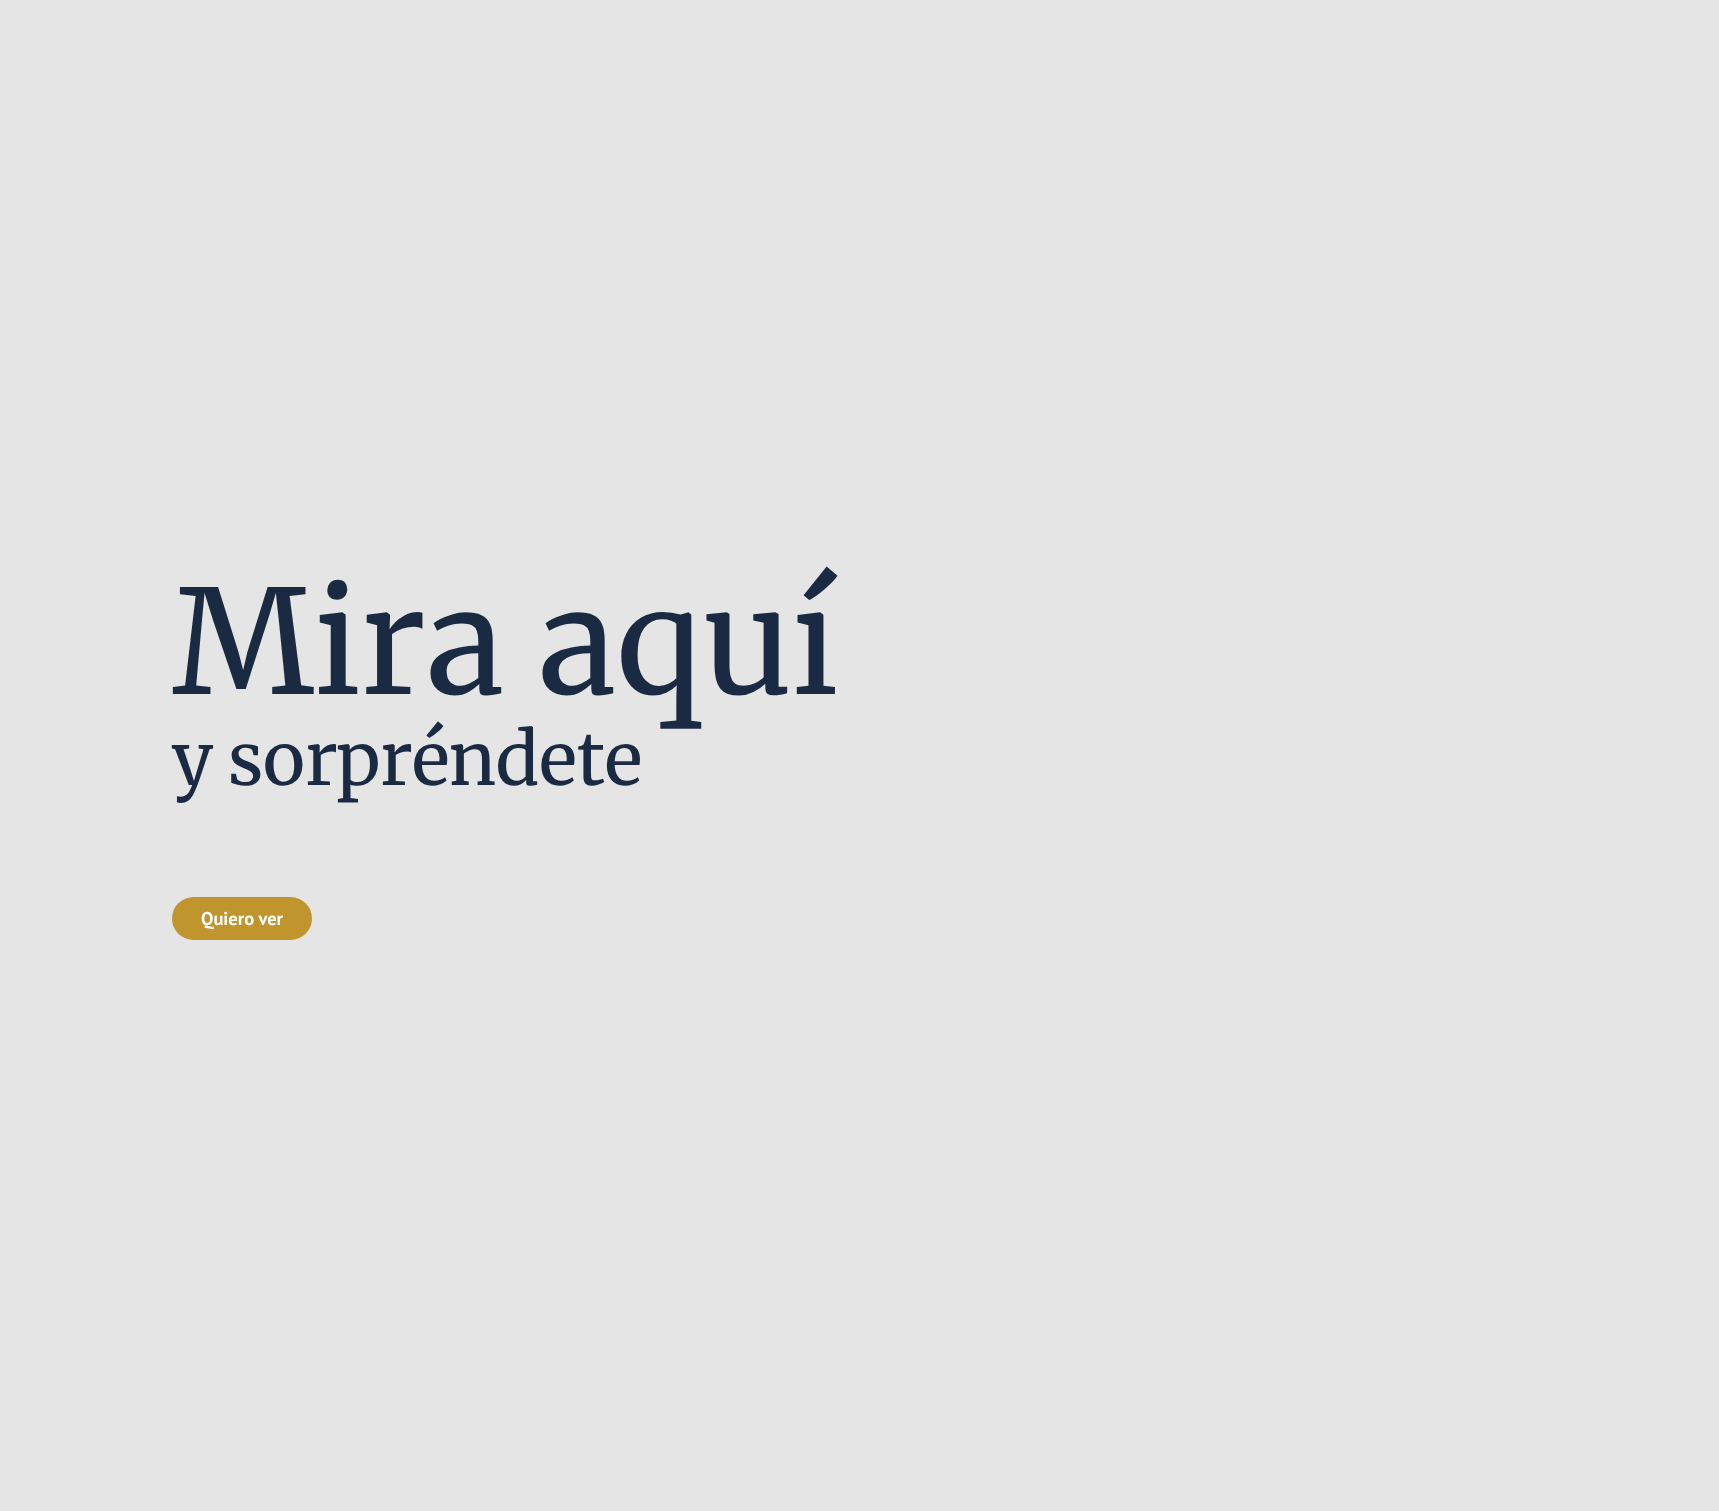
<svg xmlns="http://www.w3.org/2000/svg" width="1719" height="1511">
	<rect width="100%" height="100%" fill="#E5E5E5" />
	<text x="172" y="694" font-family="Merriweather" font-size="144" letter-spacing="-1.5" fill="#1B2A43">Mira aquí</text>
	<text x="172" y="785" font-family="Merriweather" font-size="72" letter-spacing="-1.5" fill="#1B2A43">y sorpréndete</text>
	<rect x="172" y="897" width="140" height="43" rx="21.5" fill="#C0952D" />
	<text x="201" y="925" font-family="PT Sans" font-size="18.5" font-weight="700" fill="#FFFFFF">Quiero ver</text>
</svg>
